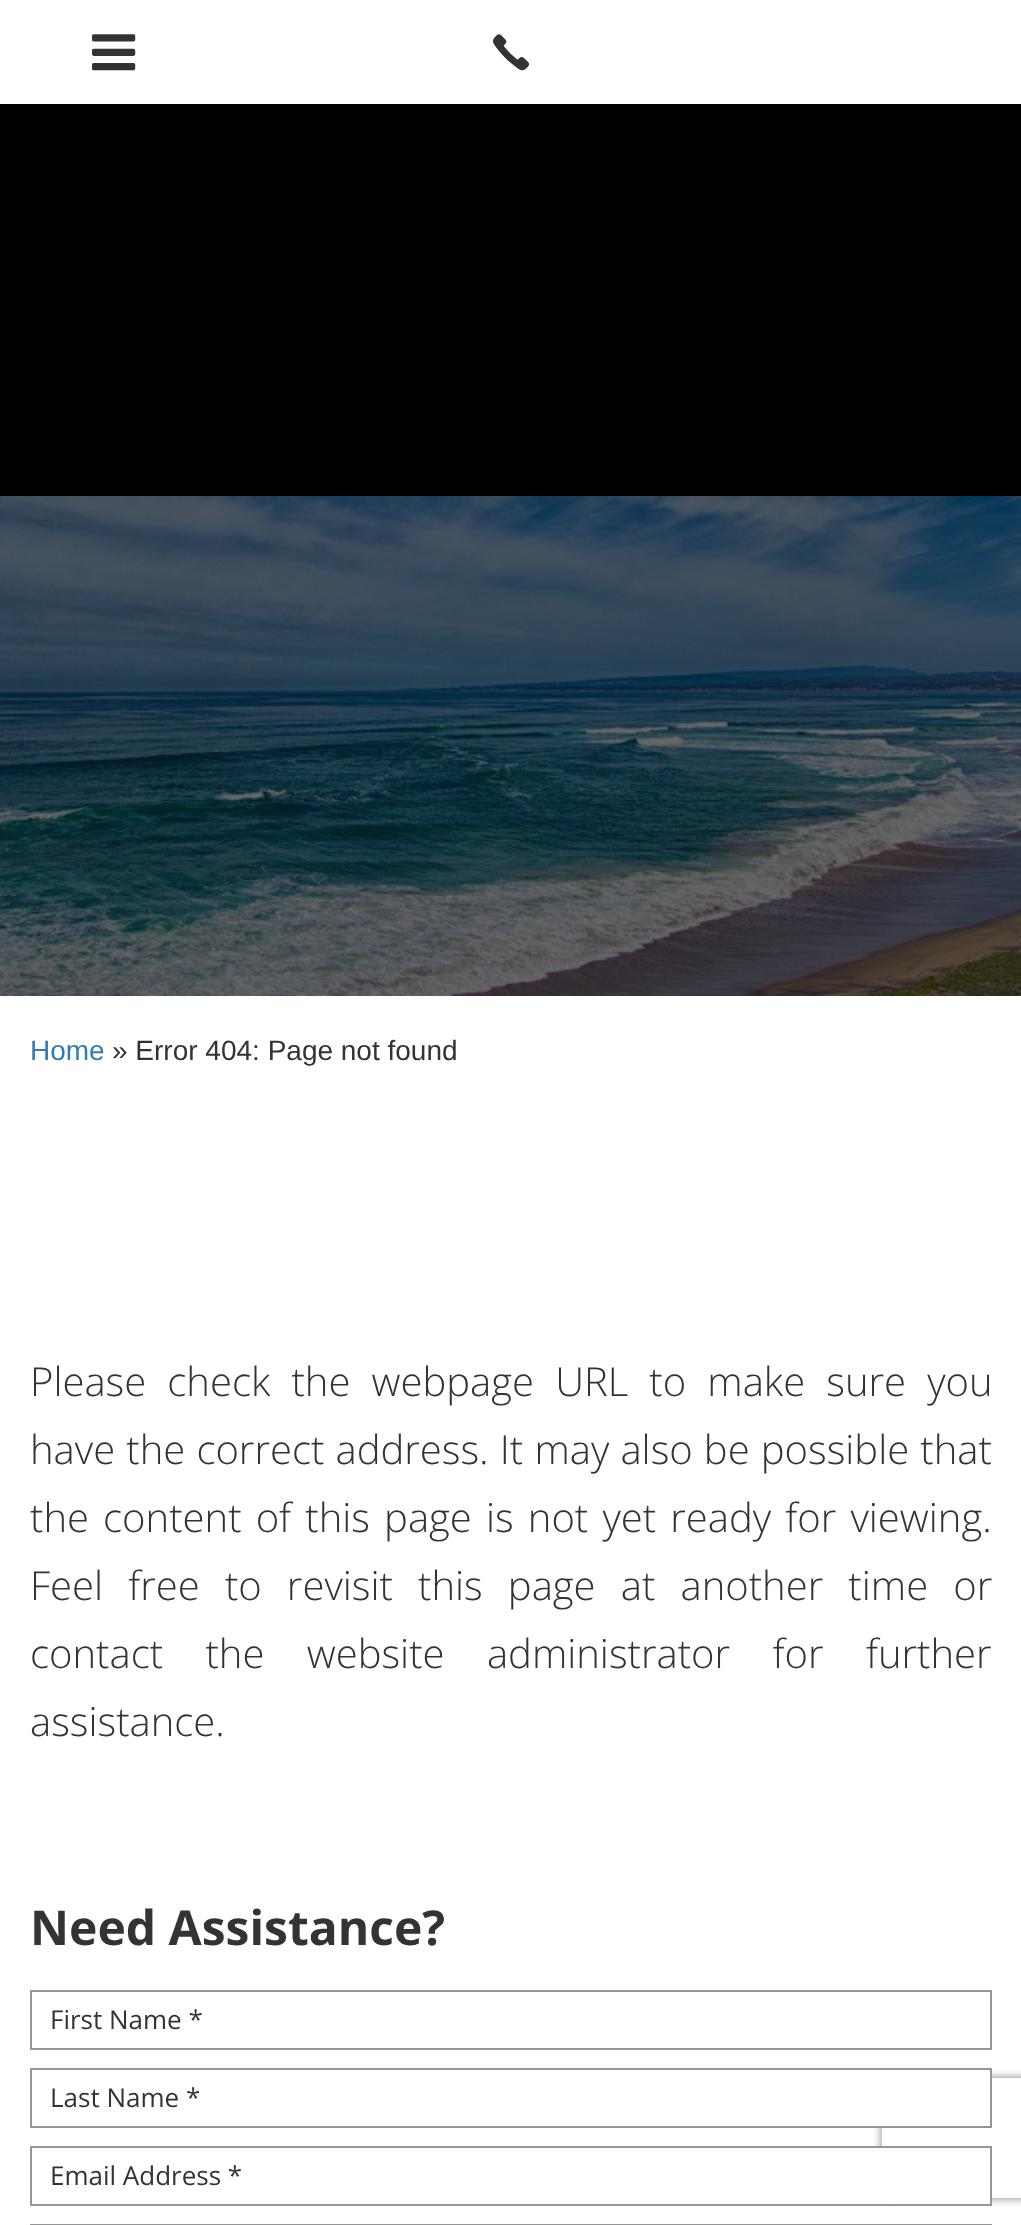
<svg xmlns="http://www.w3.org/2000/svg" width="1021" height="2225">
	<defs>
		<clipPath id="clip1"><path d="M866 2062H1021V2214H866ZM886 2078H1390C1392 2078 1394 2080 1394 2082V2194C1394 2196 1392 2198 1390 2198H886C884 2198 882 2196 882 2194V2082C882 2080 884 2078 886 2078Z" clip-rule="evenodd" /></clipPath>
	</defs>
	<rect width="100%" height="100%" fill="#FFFFFF" />
	<g font-family="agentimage" font-size="36" fill="#333333">
		<text x="92" y="68">򰁰</text>
		<text x="493" y="68">򰁩</text>
	</g>
	<rect x="0" y="104" width="1021" height="392" fill="#000000" />
	<image x="0" y="496" width="1021" height="500" href="assets/img1.png" />
	<text x="30" y="1060" font-family="Liberation Sans" font-size="28" fill="#337AB7">Home</text>
	<text x="112" y="1060" font-family="Liberation Sans" font-size="28" fill="#333333">» Error 404: Page not found</text>
	<g font-family="Open Sans" font-size="40" font-weight="300" fill="#333333">
		<text x="30" y="1396" word-spacing="10.75">Please check the webpage URL to make sure you</text>
		<text x="30" y="1464" word-spacing="0.75">have the correct address. It may also be possible that</text>
		<text x="30" y="1532" word-spacing="3.75">the content of this page is not yet ready for viewing.</text>
		<text x="30" y="1600" word-spacing="14.75">Feel free to revisit this page at another time or</text>
		<text x="30" y="1668" word-spacing="32">contact the website administrator for further</text>
		<text x="30" y="1736">assistance.</text>
	</g>
	<text x="30" y="1945" font-family="Open Sans" font-size="48" font-weight="700" fill="#333333">Need Assistance?</text>
	<rect x="31" y="1991" width="960" height="58" fill="none" stroke="#969696" stroke-width="2" />
	<text x="50" y="2029" font-family="Open Sans" font-size="26" fill="#333333">First Name *</text>
	<g clip-path="url(#clip1)">
		<rect x="882" y="2078" width="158" height="120" rx="4" fill="#808080" filter="blur(5px)" />
	</g>
	<rect x="872" y="2070" width="118" height="56" fill="#FFFFFF" />
	<rect x="31" y="2069" width="960" height="58" fill="none" stroke="#969696" stroke-width="2" />
	<text x="50" y="2107" font-family="Open Sans" font-size="26" fill="#333333">Last Name *</text>
	<rect x="872" y="2148" width="118" height="56" fill="#FFFFFF" />
	<rect x="31" y="2147" width="960" height="58" fill="none" stroke="#969696" stroke-width="2" />
	<text x="50" y="2185" font-family="Open Sans" font-size="26" fill="#333333">Email Address *</text>
	<rect x="31" y="2225" width="960" height="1" fill="none" stroke="#969696" stroke-width="2" />
</svg>
